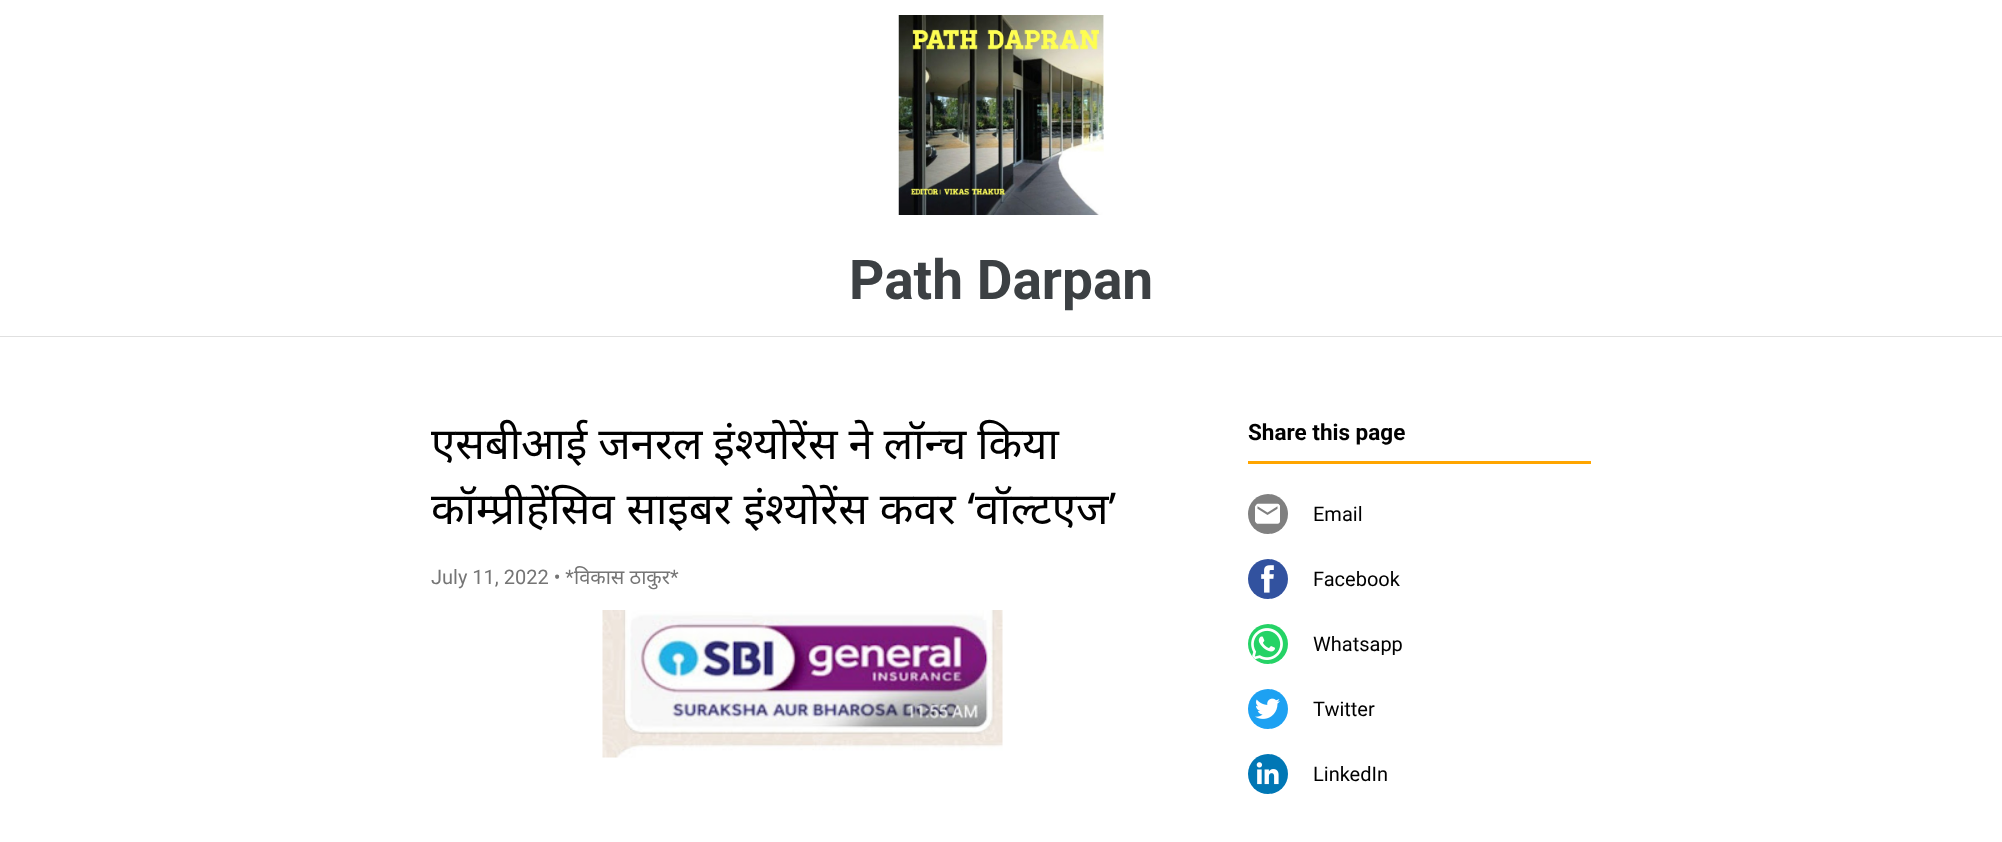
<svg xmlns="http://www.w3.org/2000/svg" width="2002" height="842">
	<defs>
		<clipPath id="clip1"><rect x="431" y="413" width="742" height="131" /></clipPath>
	</defs>
	<rect width="100%" height="100%" fill="#FFFFFF" />
	<rect x="0" y="336" width="2002" height="1" fill="#E0E0E0" />
	<image x="898" y="15" width="206" height="200" href="assets/img1.png" />
	<text x="849" y="299" font-family="Roboto" font-size="55" font-weight="700" fill="#3C4043">Path Darpan</text>
	<text x="431" y="459" word-spacing="-0.5" font-family="Noto Sans" font-size="43.75" fill="#000000">एसबीआई जनरल इंश्योरेंस ने लॉन्च किया</text>
	<g clip-path="url(#clip1)">
		<text x="431" y="524" word-spacing="0.5" font-family="Noto Sans" font-size="43.75" fill="#000000">कॉम्‍प्रीहेंसिव साइबर इंश्योरेंस कवर ‘वॉल्टएज’</text>
	</g>
	<text x="431" y="584" font-family="Roboto" font-size="20" fill="#757575">July 11, 2022 • *</text>
	<text x="574" y="584" font-family="Noto Sans" font-size="20" fill="#757575">विकास ठाकुर</text>
	<text x="670" y="584" font-family="Roboto" font-size="20" fill="#757575">*</text>
	<image x="602" y="610" width="401" height="148" href="assets/img2.png" />
	<rect x="1248" y="461" width="343" height="3" fill="#FFA500" />
	<text x="1248" y="440" font-family="Roboto" font-size="22.5" font-weight="700" fill="#000000">Share this page</text>
	<circle cx="1268" cy="514" r="20" fill="#808080" />
	<image x="1255" y="503" width="25" height="21" href="assets/img3.png" />
	<text x="1313" y="521" font-family="Roboto" font-size="20" fill="#000000">Email</text>
	<circle cx="1268" cy="579" r="20" fill="#32529F" />
	<image x="1261" y="565" width="13" height="28" href="assets/img4.png" />
	<text x="1313" y="586" font-family="Roboto" font-size="20" fill="#000000">Facebook</text>
	<circle cx="1268" cy="644" r="20" fill="#25D366" />
	<image x="1251" y="628" width="32" height="32" href="assets/img5.png" />
	<text x="1313" y="651" font-family="Roboto" font-size="20" fill="#000000">Whatsapp</text>
	<circle cx="1268" cy="709" r="20" fill="#1DA1F2" />
	<image x="1255" y="698" width="25" height="21" href="assets/img6.png" />
	<text x="1313" y="716" font-family="Roboto" font-size="20" fill="#000000">Twitter</text>
	<circle cx="1268" cy="774" r="20" fill="#0077B5" />
	<image x="1256" y="762" width="23" height="23" href="assets/img7.png" />
	<text x="1313" y="781" font-family="Roboto" font-size="20" fill="#000000">LinkedIn</text>
</svg>
